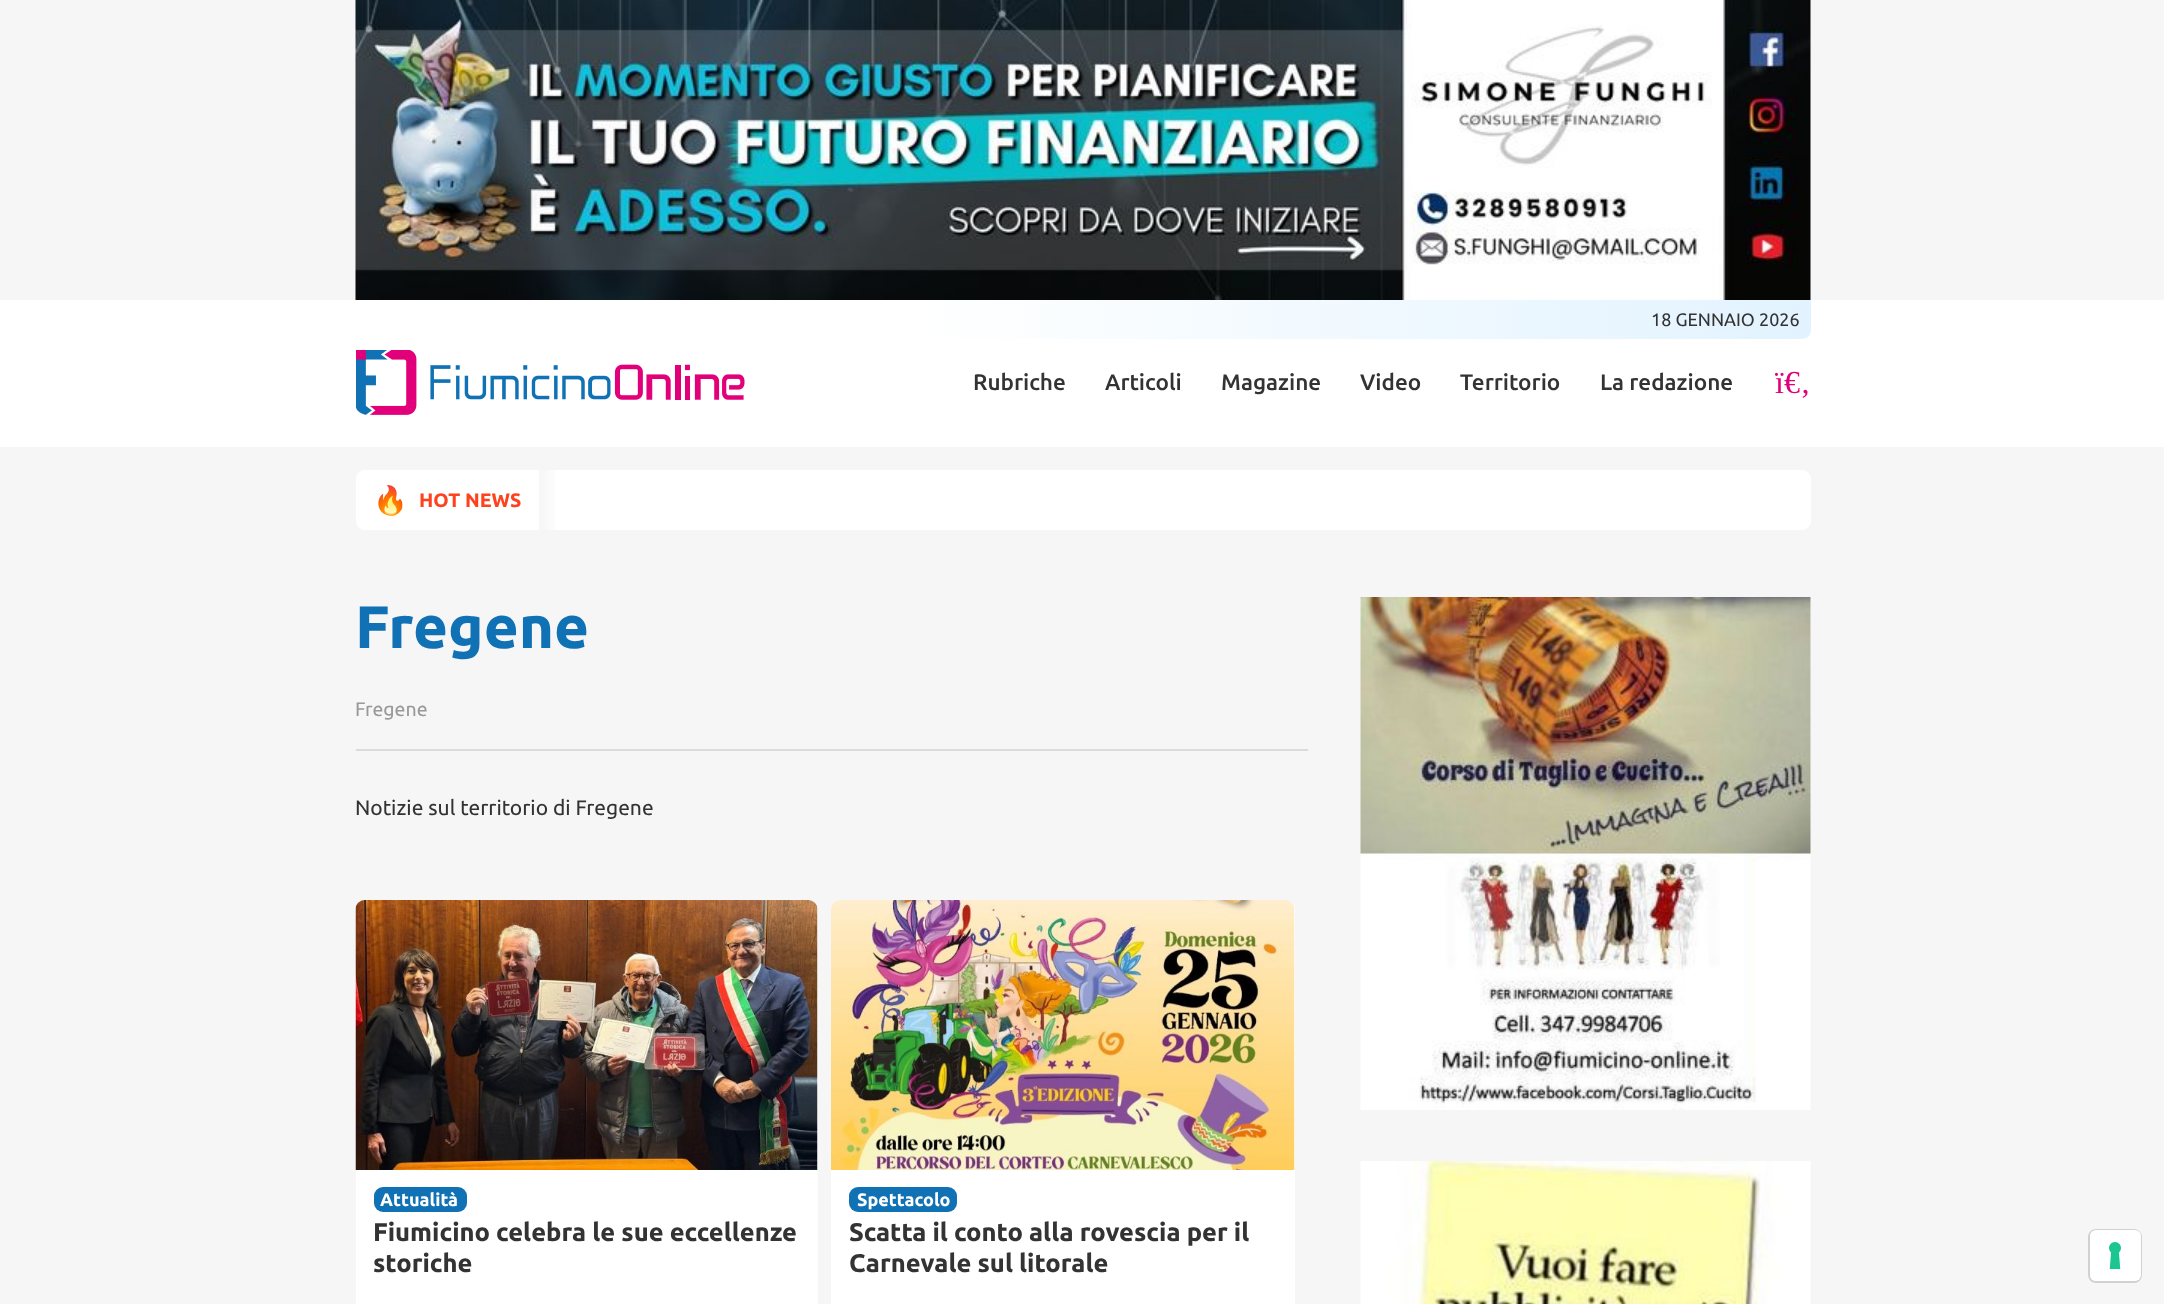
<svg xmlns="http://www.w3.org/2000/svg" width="2164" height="1304">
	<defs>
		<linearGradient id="g1" gradientUnits="userSpaceOnUse" x1="911" y1="320" x2="1811" y2="319"><stop offset="0" stop-color="#FFFFFF" /><stop offset="1" stop-color="#E2F3FF" /></linearGradient>
		<linearGradient id="g2" gradientUnits="userSpaceOnUse" x1="599" y1="500" x2="539" y2="500"><stop offset="0.63" stop-color="#FFFFFF" /><stop offset="1" stop-color="#F6F6F6" /></linearGradient>
	</defs>
	<rect width="100%" height="100%" fill="#FFFFFF" />
	<rect x="0" y="0" width="2164" height="300" fill="#F6F6F6" />
	<image x="355" y="0" width="1456" height="300" href="assets/img1.png" />
	<path d="M911 300H1811V330C1811 335 1807 339 1802 339H920C915 339 911 335 911 330Z" fill="url(#g1)" />
	<text x="1651" y="326" font-family="Ubuntu" font-size="18" fill="#333333">18 GENNAIO 2026</text>
	<image x="356" y="350" width="389" height="65" href="assets/img2.png" />
	<g font-family="Ubuntu" font-size="22.5" font-weight="500" fill="#333333">
		<text x="973" y="390">Rubriche</text>
		<text x="1105" y="390">Articoli</text>
		<text x="1221" y="390">Magazine</text>
		<text x="1360" y="390">Video</text>
		<text x="1460" y="390">Territorio</text>
		<text x="1600" y="390">La redazione</text>
	</g>
	<text x="1775" y="393" font-family="Liberation Serif" font-size="32" fill="#E2007A">ï€‚</text>
	<rect x="0" y="447" width="2164" height="857" fill="#F6F6F6" />
	<rect x="356" y="470" width="1455" height="60" rx="9" fill="#FFFFFF" />
	<text x="373" y="510" font-family="Noto Color Emoji" font-size="28" fill="#333333">🔥</text>
	<text x="419" y="507" font-family="Ubuntu" font-size="19.5" font-weight="700" fill="#FF411E">HOT NEWS</text>
	<rect x="539" y="470" width="16" height="60" fill="url(#g2)" />
	<text x="355" y="648" font-family="Ubuntu" font-size="60" font-weight="700" fill="#1072B5">Fregene</text>
	<rect x="356" y="749" width="952" height="2" fill="#DBDBDB" />
	<text x="355" y="716" font-family="Ubuntu" font-size="19.5" fill="#999999">Fregene</text>
	<text x="355" y="815" font-family="Ubuntu" font-size="21" fill="#333333">Notizie sul territorio di Fregene</text>
	<rect x="356" y="900" width="462" height="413" rx="9" fill="#FFFFFF" />
	<image x="355" y="900" width="463" height="270" href="assets/img3.png" />
	<rect x="374" y="1187" width="93" height="25" rx="9" fill="#1072B5" />
	<text x="380" y="1206" font-family="Ubuntu" font-size="18" font-weight="700" fill="#FFFFFF">Attualità</text>
	<g font-family="Ubuntu" font-size="25.5" font-weight="700" fill="#333333">
		<text x="373" y="1241">Fiumicino celebra le sue eccellenze</text>
		<text x="373" y="1272">storiche</text>
	</g>
	<rect x="831" y="900" width="464" height="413" rx="9" fill="#FFFFFF" />
	<image x="831" y="900" width="464" height="270" href="assets/img4.png" />
	<rect x="849" y="1187" width="108" height="25" rx="9" fill="#1072B5" />
	<text x="857" y="1206" font-family="Ubuntu" font-size="18" font-weight="700" fill="#FFFFFF">Spettacolo</text>
	<g font-family="Ubuntu" font-size="25.5" font-weight="700" fill="#333333">
		<text x="849" y="1241">Scatta il conto alla rovescia per il</text>
		<text x="849" y="1272">Carnevale sul litorale</text>
	</g>
	<image x="1360" y="597" width="451" height="513" href="assets/img5.png" />
	<image x="1360" y="1161" width="451" height="143" href="assets/img6.png" />
	<rect x="2089" y="1230" width="52" height="52" rx="7" fill="none" stroke="#D1D1D1" stroke-width="2" />
	<rect x="2090" y="1230" width="51" height="51" rx="6" fill="#FFFFFF" />
	<image x="2109" y="1242" width="12" height="27" href="assets/img7.png" />
</svg>
